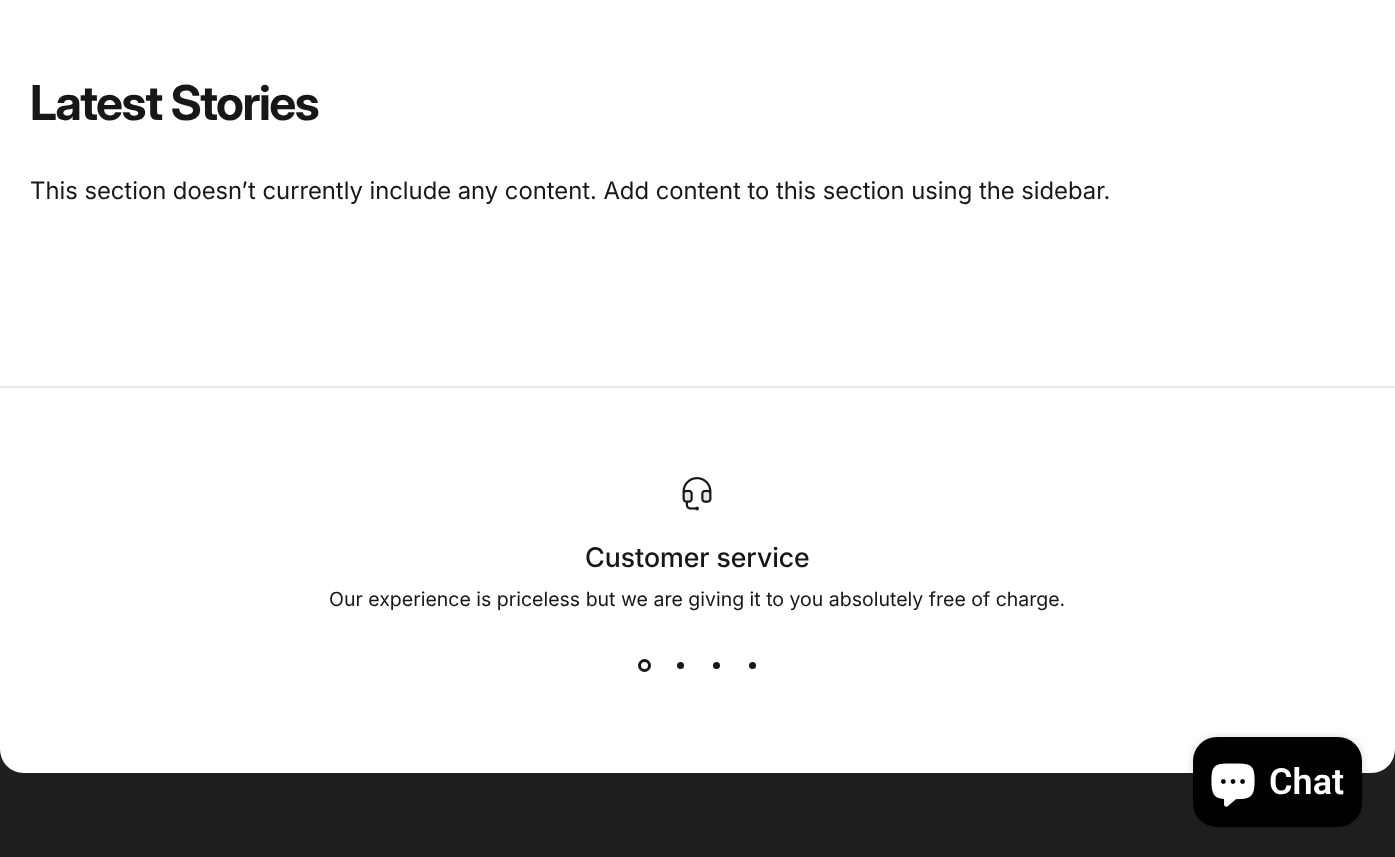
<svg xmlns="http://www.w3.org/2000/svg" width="1395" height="857">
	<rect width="100%" height="100%" fill="#FFFFFF" />
	<text x="30" y="120" font-family="Inter" font-size="48" font-weight="700" letter-spacing="-1.5" fill="#171717">Latest Stories</text>
	<text x="30" y="199" font-family="'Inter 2'" font-size="24" fill="#171717">This section doesn’t currently include any content. Add content to this section using the sidebar.</text>
	<rect x="0" y="749" width="1395" height="108" fill="#1F1F1F" />
	<path d="M0 386H1395V749C1395 762.5 1384.5 773 1371 773H24C10.5 773 0 762.5 0 749Z" fill="#FFFFFF" />
	<rect x="0" y="386" width="1395" height="2" fill="#E8E8E8" />
	<image x="682" y="477" width="30" height="34" href="assets/img1.png" />
	<text x="585" y="567" font-family="Inter" font-size="27" font-weight="500" fill="#171717">Customer service</text>
	<text x="329" y="606" font-family="Inter" font-size="19.5" fill="#171717">Our experience is priceless but we are giving it to you absolutely free of charge.</text>
	<circle cx="644.5" cy="665.5" r="5" fill="none" stroke="#171717" stroke-width="3" />
	<circle cx="680.5" cy="665.5" r="3.5" fill="#171717" />
	<circle cx="716.5" cy="665.5" r="3.5" fill="#171717" />
	<circle cx="752.5" cy="665.5" r="3.5" fill="#171717" />
	<rect x="1193" y="737" width="169" height="90" rx="24" fill="#000000" fill-opacity="0.15" filter="blur(4px)" />
	<rect x="1193" y="737" width="169" height="90" rx="24" fill="#000000" />
	<image x="1211" y="763" width="44" height="44" href="assets/img2.png" />
	<text x="1269" y="794" font-family="Roboto" font-size="36" font-weight="600" fill="#FFFFFF">Chat</text>
</svg>
